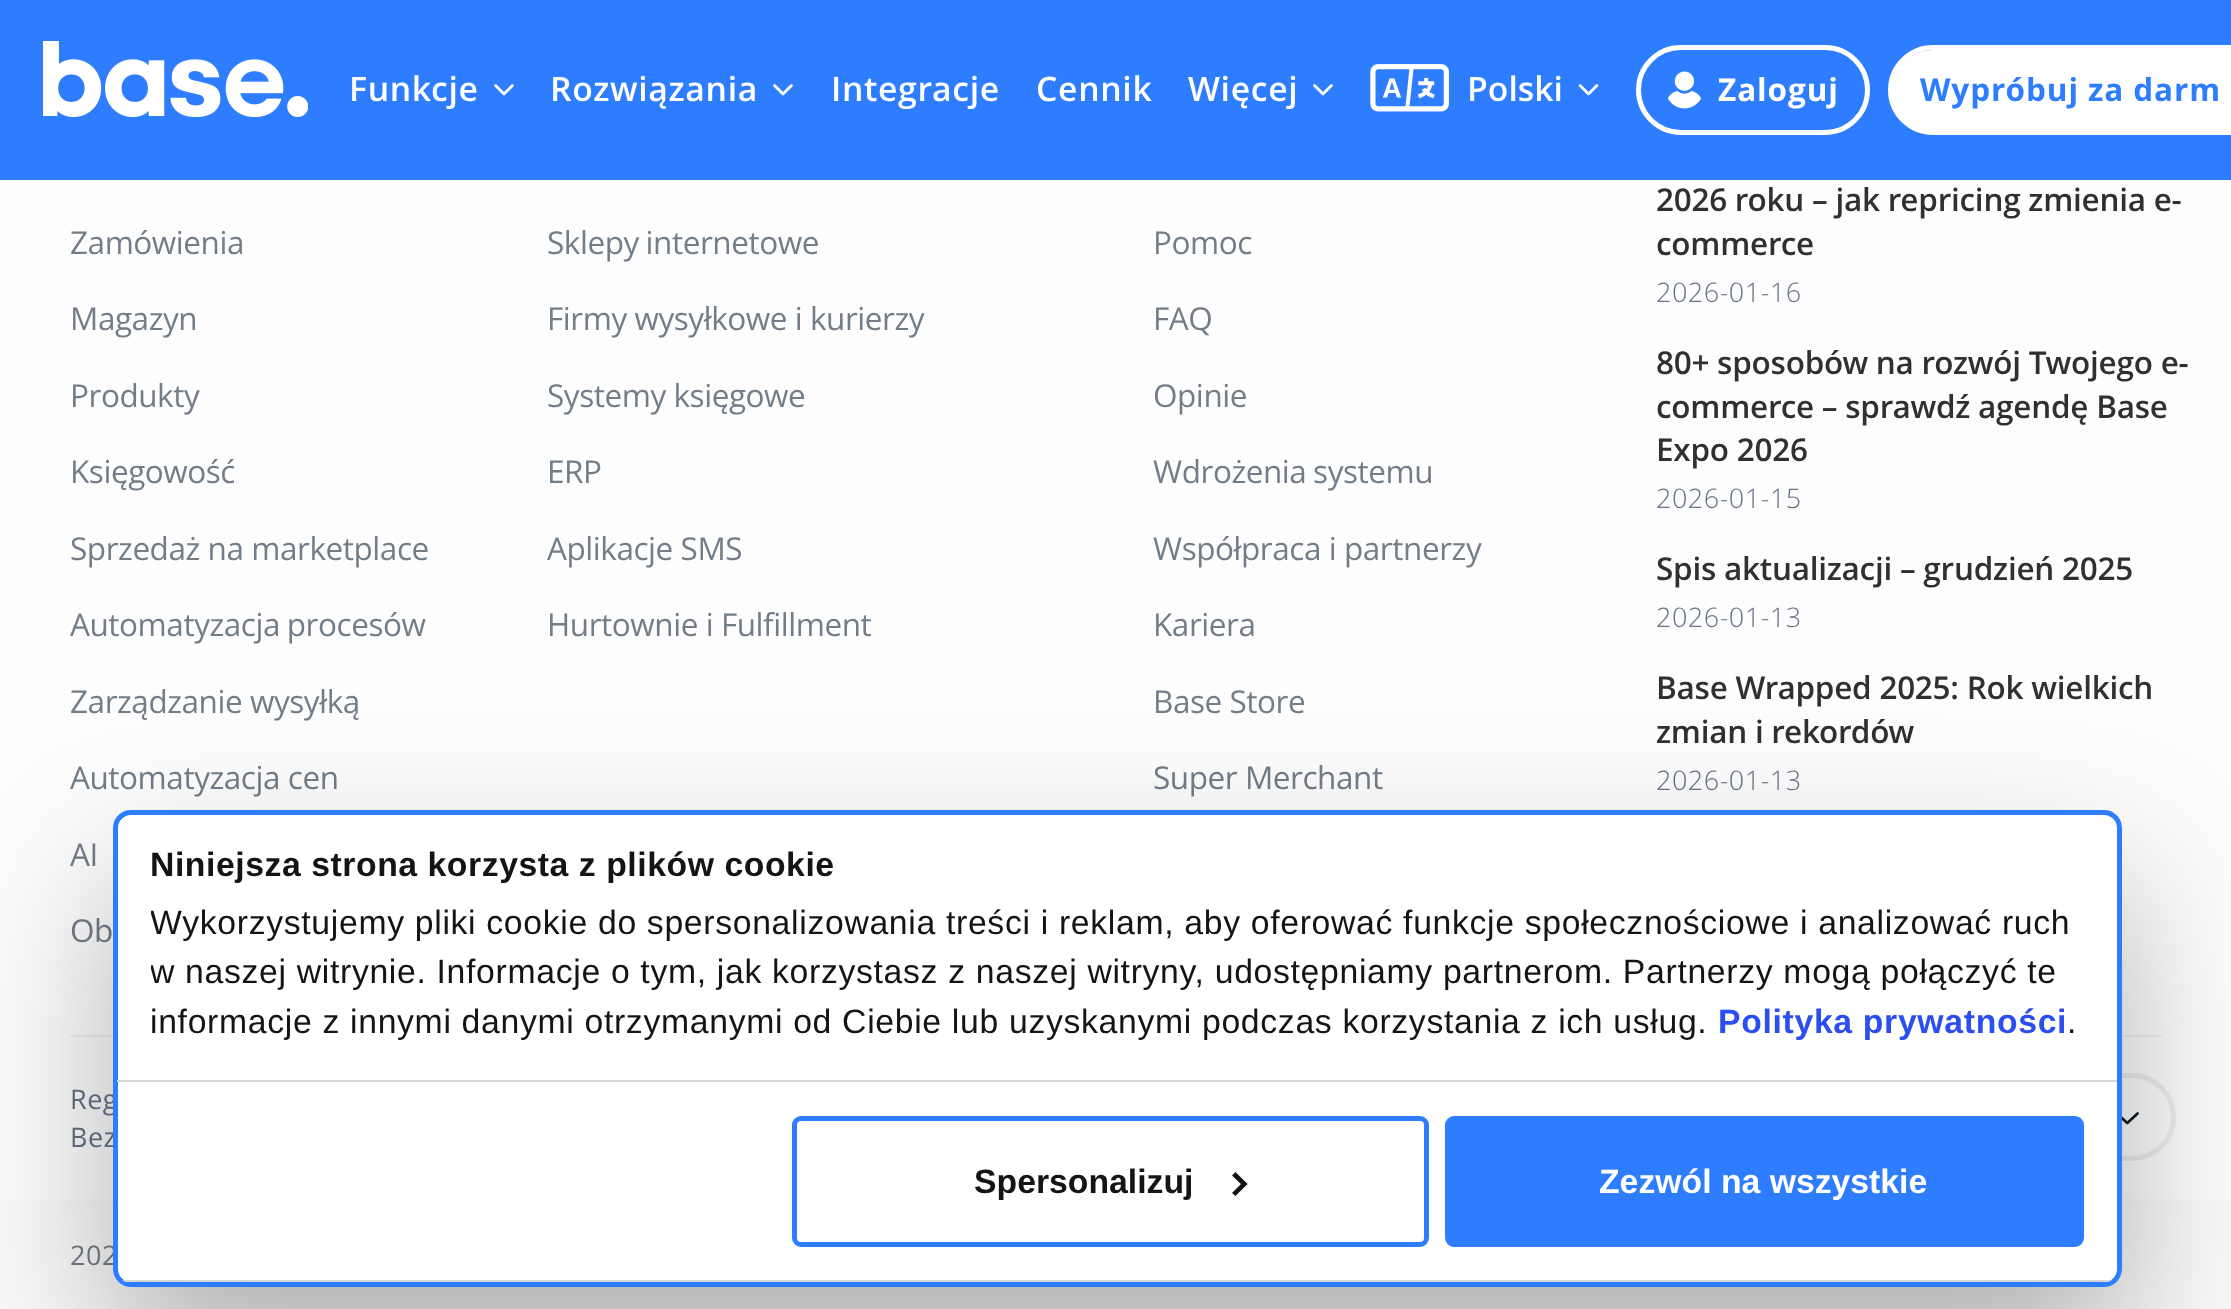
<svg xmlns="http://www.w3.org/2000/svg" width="2231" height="1309">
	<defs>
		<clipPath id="clip1"><path d="M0 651H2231V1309H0ZM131 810H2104C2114 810 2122 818 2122 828V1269C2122 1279 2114 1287 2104 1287H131C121 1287 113 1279 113 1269V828C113 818 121 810 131 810Z" clip-rule="evenodd" /></clipPath>
		<clipPath id="clip2"><rect x="151" y="848" width="1933" height="198" /></clipPath>
		<clipPath id="clip3"><rect x="117" y="815" width="2000" height="468" rx="14" /></clipPath>
	</defs>
	<rect width="100%" height="100%" fill="#FDFDFD" />
	<rect x="0" y="0" width="2231" height="180" fill="#2F7DFF" />
	<image x="43" y="41" width="265" height="76" href="assets/img1.png" />
	<text x="349" y="101" font-family="Open Sans" font-size="33.75" font-weight="600" letter-spacing="0.67" fill="#FFFFFF">Funkcje</text>
	<image x="494" y="84" width="20" height="12" href="assets/img2.png" />
	<text x="550" y="101" font-family="Open Sans" font-size="33.75" font-weight="600" letter-spacing="0.67" fill="#FFFFFF">Rozwiązania</text>
	<image x="773" y="84" width="20" height="12" href="assets/img2.png" />
	<g font-family="Open Sans" font-size="33.75" font-weight="600" letter-spacing="0.67" fill="#FFFFFF">
		<text x="831" y="101">Integracje</text>
		<text x="1036" y="101">Cennik</text>
		<text x="1188" y="101">Więcej</text>
	</g>
	<image x="1313" y="84" width="20" height="12" href="assets/img2.png" />
	<image x="1370" y="64" width="79" height="48" href="assets/img3.png" />
	<text x="1467" y="101" font-family="Open Sans" font-size="33.75" font-weight="600" fill="#FFFFFF">Polski</text>
	<image x="1578" y="84" width="21" height="12" href="assets/img4.png" />
	<rect x="1638.5" y="47.5" width="229" height="85" rx="42.5" fill="none" stroke="#FFFFFF" stroke-width="5" />
	<image x="1667" y="71" width="34" height="38" href="assets/img5.png" />
	<text x="1718" y="101" font-family="Open Sans" font-size="31.5" font-weight="700" letter-spacing="0.9" fill="#FFFFFF">Zaloguj</text>
	<rect x="1890.5" y="47.5" width="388" height="85" rx="42.5" fill="none" stroke="#FFFFFF" stroke-width="5" />
	<rect x="1892" y="50" width="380" height="81" rx="40.5" fill="#FFFFFF" />
	<text x="1920" y="101" font-family="Open Sans" font-size="31.5" font-weight="700" letter-spacing="0.9" fill="#2F7DFF">Wypróbuj za darm</text>
	<g font-family="Open Sans" font-size="31.5" letter-spacing="-0.45" fill="#737D88">
		<text x="70" y="254">Zamówienia</text>
		<text x="70" y="330">Magazyn</text>
		<text x="70" y="407">Produkty</text>
		<text x="70" y="483">Księgowość</text>
		<text x="70" y="560">Sprzedaż na marketplace</text>
		<text x="70" y="636" word-spacing="-1">Automatyzacja procesów</text>
		<text x="70" y="713">Zarządzanie wysyłką</text>
		<text x="70" y="789">Automatyzacja cen</text>
		<text x="70" y="866">AI</text>
		<text x="70" y="942">Ob</text>
		<text x="547" y="254" word-spacing="-1">Sklepy internetowe</text>
		<text x="547" y="330">Firmy wysyłkowe i kurierzy</text>
		<text x="547" y="407">Systemy księgowe</text>
		<text x="547" y="483">ERP</text>
		<text x="547" y="560">Aplikacje SMS</text>
		<text x="547" y="636">Hurtownie i Fulfillment</text>
		<text x="1153" y="254">Pomoc</text>
		<text x="1153" y="330">FAQ</text>
		<text x="1153" y="407">Opinie</text>
		<text x="1153" y="483" word-spacing="-1">Wdrożenia systemu</text>
		<text x="1153" y="560">Współpraca i partnerzy</text>
		<text x="1153" y="636">Kariera</text>
		<text x="1153" y="713">Base Store</text>
		<text x="1153" y="789">Super Merchant</text>
	</g>
	<g font-family="Open Sans" font-size="31.5" font-weight="600" letter-spacing="-0.25" fill="#303030">
		<text x="1656" y="211">2026 roku – jak repricing zmienia e-</text>
		<text x="1656" y="255">commerce</text>
	</g>
	<text x="1656" y="302" font-family="Open Sans" font-size="27" font-weight="300" letter-spacing="0.5" fill="#677386">2026-01-16</text>
	<g font-family="Open Sans" font-size="31.5" font-weight="600" letter-spacing="-0.25" fill="#303030">
		<text x="1656" y="374">80+ sposobów na rozwój Twojego e-</text>
		<text x="1656" y="418">commerce – sprawdź agendę Base</text>
		<text x="1656" y="461">Expo 2026</text>
	</g>
	<text x="1656" y="508" font-family="Open Sans" font-size="27" font-weight="300" letter-spacing="0.5" fill="#677386">2026-01-15</text>
	<text x="1656" y="580" font-family="Open Sans" font-size="31.5" font-weight="600" letter-spacing="-0.25" fill="#303030">Spis aktualizacji – grudzień 2025</text>
	<text x="1656" y="627" font-family="Open Sans" font-size="27" font-weight="300" letter-spacing="0.5" fill="#677386">2026-01-13</text>
	<g font-family="Open Sans" font-size="31.5" font-weight="600" letter-spacing="-0.25" fill="#303030">
		<text x="1656" y="699">Base Wrapped 2025: Rok wielkich</text>
		<text x="1656" y="743">zmian i rekordów</text>
	</g>
	<text x="1656" y="790" font-family="Open Sans" font-size="27" font-weight="300" letter-spacing="0.5" fill="#677386">2026-01-13</text>
	<rect x="70" y="1035" width="2092" height="2" fill="#F1F2F3" />
	<g font-family="Open Sans" font-size="27" letter-spacing="0.5" fill="#677386">
		<text x="70" y="1109">Reg</text>
		<text x="70" y="1147">Bez</text>
	</g>
	<rect x="2029.5" y="1075.5" width="144" height="83" rx="41.5" fill="none" stroke="#ECEEF0" stroke-width="5" />
	<image x="2122" y="1112" width="17" height="13" href="assets/img6.png" />
	<rect x="0" y="1199" width="2231" height="110" fill="#FAFAFA" />
	<text x="70" y="1265" font-family="Open Sans" font-size="27" letter-spacing="0.55" fill="#737D88">202</text>
	<g clip-path="url(#clip1)">
		<rect x="113" y="882" width="2009" height="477" rx="18" fill="#000000" fill-opacity="0.3" filter="blur(76.5px)" />
	</g>
	<rect x="115.5" y="812.5" width="2004" height="472" rx="15.5" fill="#FFFFFF" stroke="#2F7DFF" stroke-width="5" />
	<rect x="117" y="1080" width="2000" height="2" fill="#D6D6D6" />
	<text x="150" y="876" font-family="Liberation Sans" font-size="33.75" font-weight="700" letter-spacing="0.55" fill="#141414">Niniejsza strona korzysta z plików cookie</text>
	<g clip-path="url(#clip2)">
		<g font-family="Liberation Sans" font-size="33.75" letter-spacing="0.67" fill="#141414">
			<text x="150" y="934">Wykorzystujemy pliki cookie do spersonalizowania treści i reklam, aby oferować funkcje społecznościowe i analizować ruch</text>
			<text x="150" y="983">w naszej witrynie. Informacje o tym, jak korzystasz z naszej witryny, udostępniamy partnerom. Partnerzy mogą połączyć te</text>
		</g>
	</g>
	<text x="150" y="1033" font-family="Liberation Sans" font-size="33.75" letter-spacing="0.67" fill="#141414">informacje z innymi danymi otrzymanymi od Ciebie lub uzyskanymi podczas korzystania z ich usług.</text>
	<text x="1718" y="1033" font-family="Liberation Sans" font-size="33.75" font-weight="700" letter-spacing="0.67" fill="#2A4EEF">Polityka prywatności</text>
	<text x="2067" y="1033" font-family="Liberation Sans" font-size="33.75" letter-spacing="0.67" fill="#141414">.</text>
	<g clip-path="url(#clip3)">
		<rect x="117" y="1280" width="2000" height="2" fill="#D6D6D6" />
	</g>
	<rect x="794.5" y="1118.5" width="632" height="126" rx="6.5" fill="none" stroke="#2F7DFF" stroke-width="5" />
	<text x="974" y="1193" font-family="Liberation Sans" font-size="33.75" font-weight="700" fill="#141414">Spersonalizuj</text>
	<path d="M1235.5 1172L1247.5 1184L1244 1187L1232 1175.5Z" fill="#141414" />
	<path d="M1244 1181L1247.5 1184L1235.5 1196L1232 1193Z" fill="#141414" />
	<rect x="1447.5" y="1118.5" width="634" height="126" rx="6.5" fill="#2F7DFF" stroke="#2F7DFF" stroke-width="5" />
	<text x="1599" y="1193" font-family="Liberation Sans" font-size="33.75" font-weight="700" fill="#FFFFFF">Zezwól na wszystkie</text>
</svg>
